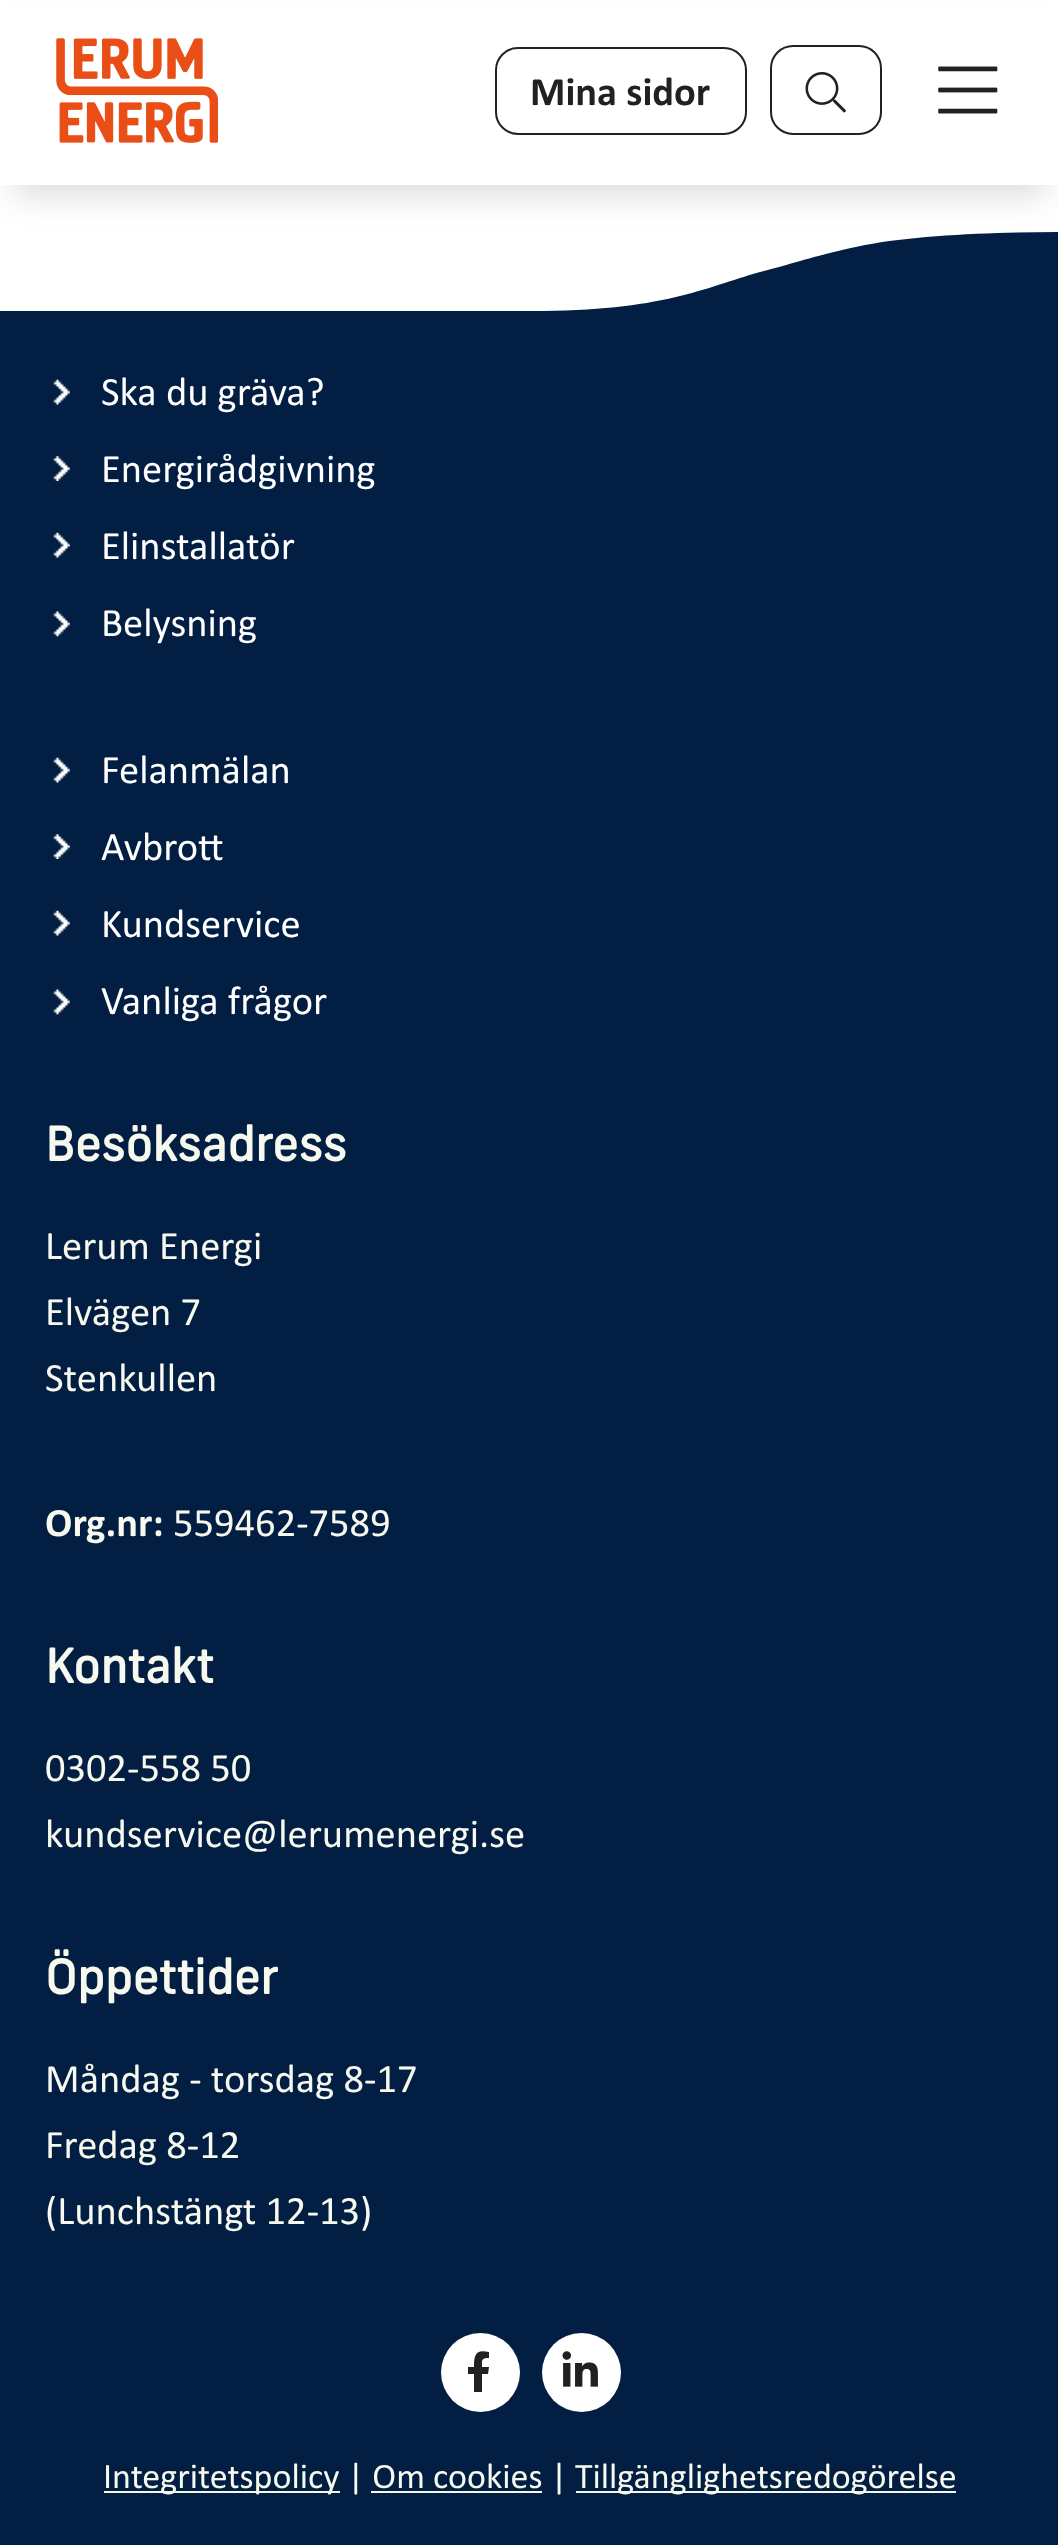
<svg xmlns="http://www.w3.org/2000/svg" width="1058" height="2545">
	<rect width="100%" height="100%" fill="#FFFFFF" />
	<path d="M531 311C664 311 703 288 760 272C810 259 809 257 865 245C916 235 995 232 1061 232V311Z" fill="#021E42" />
	<rect x="14" y="34" width="1032" height="160" fill="#000000" fill-opacity="0.15" filter="blur(17px)" />
	<rect x="0" y="8" width="1058" height="177" fill="#FFFFFF" />
	<image x="56" y="38" width="162" height="105" href="assets/img1.png" />
	<rect x="496" y="48" width="250" height="86" rx="22" fill="none" stroke="#212121" stroke-width="2" />
	<text x="530" y="105" font-family="Calibri" font-size="40.5" font-weight="700" fill="#212121">Mina sidor</text>
	<rect x="771" y="46" width="110" height="88" rx="22" fill="none" stroke="#212121" stroke-width="2" />
	<image x="805" y="72" width="41" height="41" href="assets/img2.png" />
	<image x="938" y="66" width="60" height="48" href="assets/img3.png" />
	<rect x="0" y="311" width="1058" height="2234" fill="#021E42" />
	<image x="53" y="379" width="17" height="26" href="assets/img4.png" />
	<text x="101" y="405" font-family="Calibri" font-size="40.5" fill="#FFFFFF">Ska du gräva?</text>
	<image x="53" y="456" width="17" height="25" href="assets/img5.png" />
	<text x="101" y="482" font-family="Calibri" font-size="40.5" fill="#FFFFFF">Energirådgivning</text>
	<image x="53" y="532" width="17" height="26" href="assets/img4.png" />
	<text x="101" y="559" font-family="Calibri" font-size="40.5" fill="#FFFFFF">Elinstallatör</text>
	<image x="53" y="611" width="17" height="26" href="assets/img6.png" />
	<text x="101" y="636" font-family="Calibri" font-size="40.5" fill="#FFFFFF">Belysning</text>
	<image x="53" y="757" width="17" height="26" href="assets/img4.png" />
	<text x="101" y="783" font-family="Calibri" font-size="40.5" fill="#FFFFFF">Felanmälan</text>
	<image x="53" y="834" width="17" height="25" href="assets/img5.png" />
	<text x="101" y="860" font-family="Calibri" font-size="40.5" fill="#FFFFFF">Avbrott</text>
	<image x="53" y="910" width="17" height="26" href="assets/img4.png" />
	<text x="101" y="937" font-family="Calibri" font-size="40.5" fill="#FFFFFF">Kundservice</text>
	<image x="53" y="989" width="17" height="26" href="assets/img6.png" />
	<text x="101" y="1014" font-family="Calibri" font-size="40.5" fill="#FFFFFF">Vanliga frågor</text>
	<text x="45" y="1161" font-family="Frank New" font-size="46.75" font-weight="700" fill="#F7F9EE">Besöksadress</text>
	<g font-family="Calibri" font-size="40.5" fill="#F7F9EE">
		<text x="45" y="1259">Lerum Energi</text>
		<text x="45" y="1325">Elvägen 7</text>
		<text x="45" y="1391">Stenkullen</text>
	</g>
	<text x="45" y="1536" font-family="Calibri" font-size="40.5" font-weight="700" fill="#F7F9EE">Org.nr:</text>
	<text x="173" y="1536" font-family="Calibri" font-size="40.5" fill="#F7F9EE">559462-7589</text>
	<text x="45" y="1683" font-family="Frank New" font-size="46.75" font-weight="700" fill="#F7F9EE">Kontakt</text>
	<g font-family="Calibri" font-size="40.5" fill="#F7F9EE">
		<text x="45" y="1781">0302-558 50</text>
		<text x="45" y="1847">kundservice@lerumenergi.se</text>
	</g>
	<text x="45" y="1994" font-family="Frank New" font-size="46.75" font-weight="700" fill="#F7F9EE">Öppettider</text>
	<g font-family="Calibri" font-size="40.5" fill="#F7F9EE">
		<text x="45" y="2092">Måndag - torsdag 8-17</text>
		<text x="45" y="2158">Fredag 8-12</text>
		<text x="45" y="2224">(Lunchstängt 12-13)</text>
	</g>
	<circle cx="480.5" cy="2372.5" r="39.5" fill="#FFFFFF" />
	<path d="M488 2374L489 2367H482C482 2360 481 2358 489 2358V2352C476 2349 474 2354 474 2367H468V2374H474V2392H482V2374Z" fill="#212121" />
	<circle cx="581.5" cy="2372.5" r="39.5" fill="#FFFFFF" />
	<image x="562" y="2351" width="36" height="36" href="assets/img7.png" />
	<rect x="104" y="2491" width="236" height="2" fill="#F7F9EE" />
	<text x="103" y="2488" font-family="Calibri" font-size="36" fill="#F7F9EE">Integritetspolicy | Om cookies |</text>
	<rect x="576" y="2491" width="380" height="2" fill="#F7F9EE" />
	<text x="575" y="2488" font-family="Calibri" font-size="36" fill="#F7F9EE">Tillgänglighetsredogörelse</text>
	<rect x="371" y="2491" width="171" height="2" fill="#F7F9EE" />
</svg>
